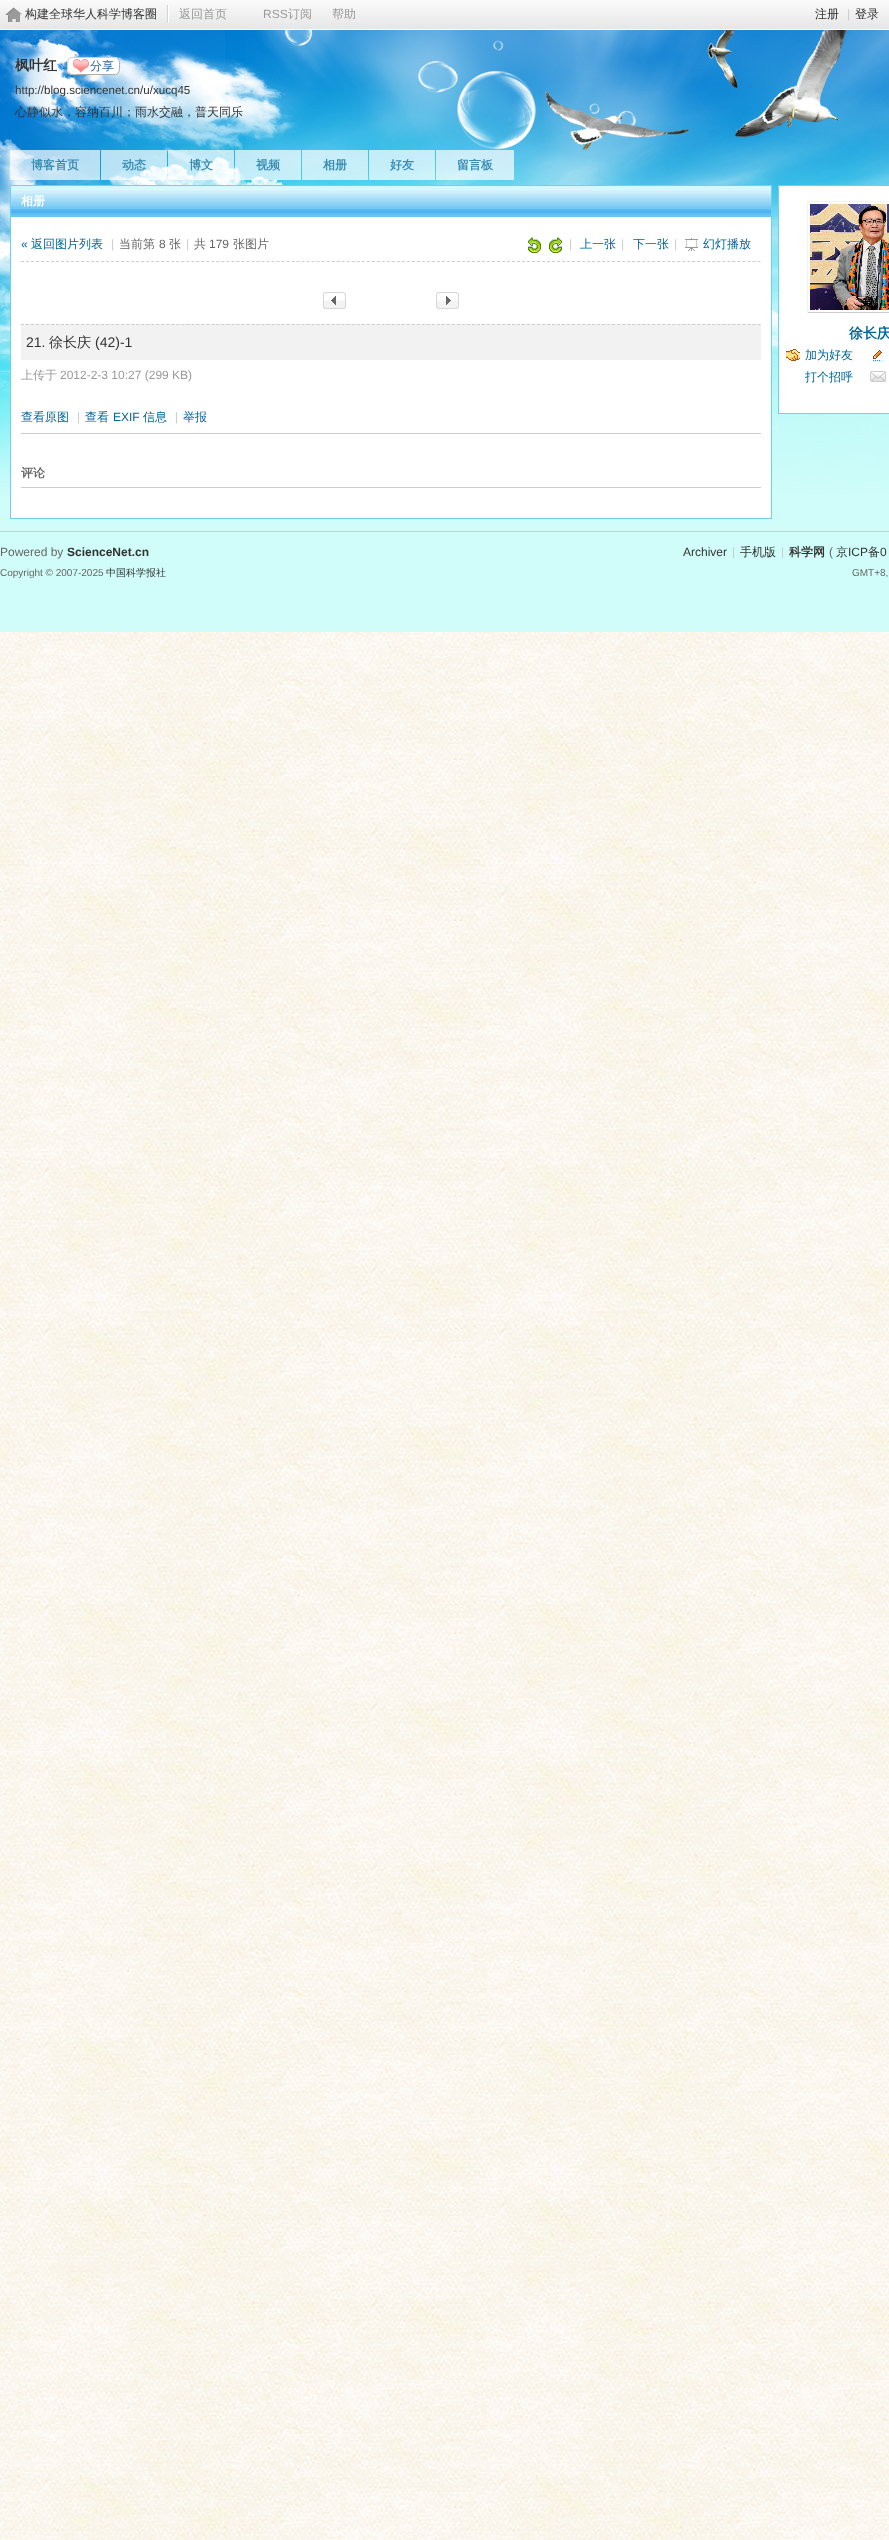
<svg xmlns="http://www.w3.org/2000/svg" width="889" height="2540">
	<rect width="100%" height="100%" fill="#FFFFFF" />
	<image x="0" y="632" width="889" height="1908" href="assets/img1.png" />
	<rect x="0" y="496" width="889" height="136" fill="#D0FDF9" />
	<image x="0" y="30" width="889" height="466" href="assets/img2.png" />
	<image x="0" y="0" width="889" height="30" href="assets/img3.png" />
	<image x="5" y="7" width="17" height="15" href="assets/img4.png" />
	<rect x="168" y="5" width="1" height="18" fill="#FFFFFF" />
	<rect x="167" y="5" width="1" height="18" fill="#D5D5D5" />
	<text x="25" y="18" font-family="WenQuanYi Zen Hei" font-size="12" font-weight="500" fill="#333333">构建全球华人科学博客圈</text>
	<text x="179" y="18" font-family="WenQuanYi Zen Hei" font-size="12" font-weight="500" fill="#999999">返回首页</text>
	<text x="263" y="18" font-family="Liberation Sans" font-size="12" fill="#999999">RSS</text>
	<g font-family="WenQuanYi Zen Hei" font-size="12" font-weight="500" fill="#999999">
		<text x="288" y="18">订阅</text>
		<text x="332" y="18">帮助</text>
	</g>
	<text x="815" y="18" font-family="WenQuanYi Zen Hei" font-size="12" font-weight="500" fill="#333333">注册</text>
	<text x="847" y="18" font-family="Liberation Sans" font-size="12" fill="#CCCCCC">|</text>
	<text x="855" y="18" font-family="WenQuanYi Zen Hei" font-size="12" font-weight="500" fill="#333333">登录</text>
	<image x="285" y="30" width="562" height="120" href="assets/img5.png" />
	<text x="15" y="70" font-family="WenQuanYi Zen Hei" font-size="14" font-weight="700" fill="#333333">枫叶红</text>
	<rect x="67" y="57" width="53" height="18" rx="5" fill="#FFFFFF" />
	<image x="73" y="59" width="16" height="14" href="assets/img6.png" />
	<path d="M118 59C120 61 119.5 64 119.5 67C119.5 76 116.5 74.5 108 74.5H79C77 74.5 71.5 75.5 69 73" fill="none" stroke="#A9A9A9" />
	<path d="M69 73C67 71 67.5 68 67.5 65C67.5 56 70.5 57.5 79 57.5H108C110 57.5 115.5 56.5 118 59" fill="none" stroke="#CCCCCC" />
	<text x="90" y="70" font-family="WenQuanYi Zen Hei" font-size="12" font-weight="500" fill="#336699">分享</text>
	<text x="15" y="94" font-family="Liberation Sans" font-size="11.6" fill="#333333">http://blog.sciencenet.cn/u/xucq45</text>
	<text x="15" y="116" font-family="WenQuanYi Zen Hei" font-size="12" font-weight="500" fill="#333333">心静似水，容纳百川；雨水交融，普天同乐</text>
	<rect x="10" y="150" width="90" height="30" fill="#FFFFFF" fill-opacity="0.7" />
	<text x="31" y="169" font-family="WenQuanYi Zen Hei" font-size="12" font-weight="700" fill="#398BB4">博客首页</text>
	<rect x="101" y="150" width="66" height="30" fill="#FFFFFF" fill-opacity="0.7" />
	<text x="122" y="169" font-family="WenQuanYi Zen Hei" font-size="12" font-weight="700" fill="#398BB4">动态</text>
	<rect x="168" y="150" width="66" height="30" fill="#FFFFFF" fill-opacity="0.7" />
	<text x="189" y="169" font-family="WenQuanYi Zen Hei" font-size="12" font-weight="700" fill="#398BB4">博文</text>
	<rect x="235" y="150" width="66" height="30" fill="#FFFFFF" fill-opacity="0.7" />
	<text x="256" y="169" font-family="WenQuanYi Zen Hei" font-size="12" font-weight="700" fill="#398BB4">视频</text>
	<rect x="302" y="150" width="66" height="30" fill="#FFFFFF" fill-opacity="0.7" />
	<text x="323" y="169" font-family="WenQuanYi Zen Hei" font-size="12" font-weight="700" fill="#398BB4">相册</text>
	<rect x="369" y="150" width="66" height="30" fill="#FFFFFF" fill-opacity="0.7" />
	<text x="390" y="169" font-family="WenQuanYi Zen Hei" font-size="12" font-weight="700" fill="#398BB4">好友</text>
	<rect x="436" y="150" width="78" height="30" fill="#FFFFFF" fill-opacity="0.7" />
	<text x="457" y="169" font-family="WenQuanYi Zen Hei" font-size="12" font-weight="700" fill="#398BB4">留言板</text>
	<rect x="11" y="217" width="760" height="301" fill="#FFFFFF" />
	<rect x="10.5" y="185.5" width="761" height="333" fill="none" stroke="#71CEF3" />
	<image x="11" y="186" width="760" height="31" href="assets/img7.png" />
	<text x="21" y="205" font-family="WenQuanYi Zen Hei" font-size="12" font-weight="700" fill="#FFFFFF">相册</text>
	<path d="M21 261.5H761" fill="none" stroke="#CDCDCD" stroke-dasharray="3 2.01" />
	<text x="21" y="248" font-family="Liberation Sans" font-size="12" fill="#006699">«</text>
	<text x="31" y="248" font-family="WenQuanYi Zen Hei" font-size="12" font-weight="500" fill="#006699">返回图片列表</text>
	<text x="111" y="248" font-family="Liberation Sans" font-size="12" fill="#CCCCCC">|</text>
	<text x="119" y="248" font-family="WenQuanYi Zen Hei" font-size="12" font-weight="500" fill="#666666">当前第</text>
	<text x="159" y="248" font-family="Liberation Sans" font-size="12" fill="#666666">8</text>
	<text x="169" y="248" font-family="WenQuanYi Zen Hei" font-size="12" font-weight="500" fill="#666666">张</text>
	<text x="186" y="248" font-family="Liberation Sans" font-size="12" fill="#CCCCCC">|</text>
	<text x="194" y="248" font-family="WenQuanYi Zen Hei" font-size="12" font-weight="500" fill="#666666">共</text>
	<text x="209" y="248" font-family="Liberation Sans" font-size="12" fill="#666666">179</text>
	<text x="233" y="248" font-family="WenQuanYi Zen Hei" font-size="12" font-weight="500" fill="#666666">张图片</text>
	<image x="528" y="237" width="13" height="16" href="assets/img8.png" />
	<image x="549" y="237" width="13" height="16" href="assets/img9.png" />
	<text x="569" y="248" font-family="Liberation Sans" font-size="12" fill="#CCCCCC">|</text>
	<text x="580" y="248" font-family="WenQuanYi Zen Hei" font-size="12" font-weight="500" fill="#006699">上一张</text>
	<text x="621" y="248" font-family="Liberation Sans" font-size="12" fill="#CCCCCC">|</text>
	<text x="633" y="248" font-family="WenQuanYi Zen Hei" font-size="12" font-weight="500" fill="#006699">下一张</text>
	<text x="674" y="248" font-family="Liberation Sans" font-size="12" fill="#CCCCCC">|</text>
	<image x="685" y="238" width="13" height="13" href="assets/img10.png" />
	<text x="703" y="248" font-family="WenQuanYi Zen Hei" font-size="12" font-weight="500" fill="#006699">幻灯播放</text>
	<image x="323" y="292" width="23" height="17" href="assets/img11.png" />
	<image x="436" y="292" width="23" height="17" href="assets/img12.png" />
	<rect x="21" y="433" width="740" height="1" fill="#CDCDCD" />
	<rect x="21" y="324" width="740" height="36" fill="#F2F2F2" />
	<path d="M21 324.5H761" fill="none" stroke="#CDCDCD" stroke-dasharray="3 2.01" />
	<text x="26" y="347" font-family="Liberation Sans" font-size="14" fill="#333333">21.</text>
	<text x="49" y="347" font-family="WenQuanYi Zen Hei" font-size="14" font-weight="500" fill="#333333">徐长庆</text>
	<text x="95" y="347" font-family="Liberation Sans" font-size="14" fill="#333333">(42)-1</text>
	<text x="21" y="379" font-family="WenQuanYi Zen Hei" font-size="12" font-weight="500" fill="#999999">上传于</text>
	<text x="60" y="379" font-family="Liberation Sans" font-size="12" fill="#999999">2012-2-3 10:27 (299 KB)</text>
	<text x="21" y="421" font-family="WenQuanYi Zen Hei" font-size="12" font-weight="500" fill="#006699">查看原图</text>
	<text x="77" y="421" font-family="Liberation Sans" font-size="12" fill="#CCCCCC">|</text>
	<text x="85" y="421" font-family="WenQuanYi Zen Hei" font-size="12" font-weight="500" fill="#006699">查看</text>
	<text x="113" y="421" font-family="Liberation Sans" font-size="12" fill="#006699">EXIF</text>
	<text x="143" y="421" font-family="WenQuanYi Zen Hei" font-size="12" font-weight="500" fill="#006699">信息</text>
	<text x="175" y="421" font-family="Liberation Sans" font-size="12" fill="#CCCCCC">|</text>
	<text x="183" y="421" font-family="WenQuanYi Zen Hei" font-size="12" font-weight="500" fill="#006699">举报</text>
	<rect x="21" y="487" width="740" height="1" fill="#CDCDCD" />
	<text x="21" y="477" font-family="WenQuanYi Zen Hei" font-size="12" font-weight="700" fill="#666666">评论</text>
	<rect x="778.5" y="185.5" width="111" height="228" fill="#FFFFFF" stroke="#71CEF3" />
	<rect x="807" y="201" width="82" height="1" fill="#F2F2F2" />
	<rect x="807" y="312" width="82" height="1" fill="#CDCDCD" />
	<rect x="807" y="201" width="1" height="112" fill="#F2F2F2" />
	<image x="810" y="204" width="79" height="106" href="assets/img13.png" />
	<text x="849" y="338" font-family="WenQuanYi Zen Hei" font-size="14" font-weight="700" fill="#006699">徐长庆</text>
	<image x="786" y="349" width="14" height="12" href="assets/img14.png" />
	<text x="805" y="359" font-family="WenQuanYi Zen Hei" font-size="12" font-weight="500" fill="#006699">加为好友</text>
	<image x="873" y="350" width="11" height="12" href="assets/img15.png" />
	<text x="805" y="381" font-family="WenQuanYi Zen Hei" font-size="12" font-weight="500" fill="#006699">打个招呼</text>
	<image x="870" y="371" width="16" height="11" href="assets/img16.png" />
	<rect x="0" y="531" width="889" height="1" fill="#CDCDCD" />
	<text x="0" y="556" font-family="Liberation Sans" font-size="12" fill="#666666">Powered by</text>
	<text x="67" y="556" font-family="Liberation Sans" font-size="12" font-weight="700" fill="#333333">ScienceNet.cn</text>
	<text x="0" y="576" font-family="Liberation Sans" font-size="10" fill="#666666">Copyright © 2007-2025</text>
	<text x="106" y="576" font-family="WenQuanYi Zen Hei" font-size="10" font-weight="500" fill="#333333">中国科学报社</text>
	<text x="683" y="556" font-family="Liberation Sans" font-size="12" fill="#333333">Archiver</text>
	<text x="732" y="556" font-family="Liberation Sans" font-size="12" fill="#CCCCCC">|</text>
	<text x="740" y="556" font-family="WenQuanYi Zen Hei" font-size="12" font-weight="500" fill="#333333">手机版</text>
	<text x="781" y="556" font-family="Liberation Sans" font-size="12" fill="#CCCCCC">|</text>
	<text x="789" y="556" font-family="WenQuanYi Zen Hei" font-size="12" font-weight="700" fill="#333333">科学网</text>
	<text x="829" y="556" font-family="Liberation Sans" font-size="12" fill="#666666">(</text>
	<text x="836" y="556" font-family="WenQuanYi Zen Hei" font-size="12" font-weight="500" fill="#333333">京</text>
	<text x="848" y="556" font-family="Liberation Sans" font-size="12" fill="#333333">ICP</text>
	<text x="868" y="556" font-family="WenQuanYi Zen Hei" font-size="12" font-weight="500" fill="#333333">备</text>
	<text x="880" y="556" font-family="Liberation Sans" font-size="12" fill="#333333">0</text>
	<text x="852" y="576" font-family="Liberation Sans" font-size="10" fill="#666666">GMT+8,</text>
</svg>
